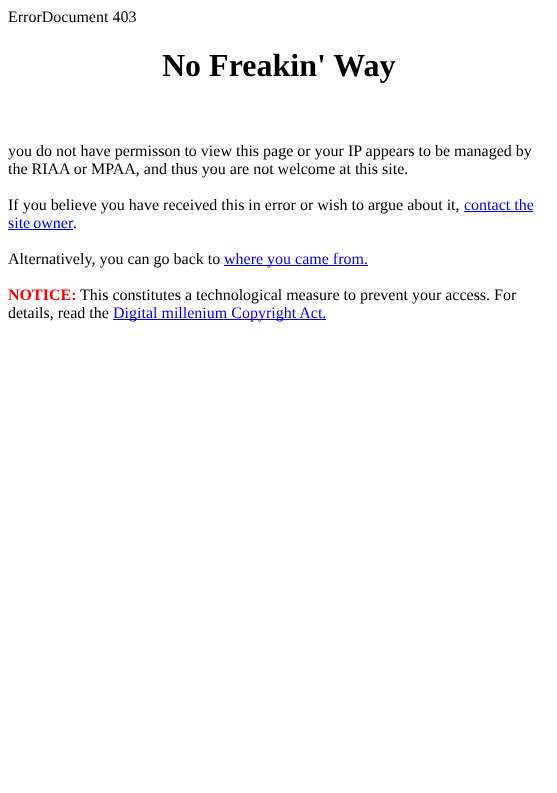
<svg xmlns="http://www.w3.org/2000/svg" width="557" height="793">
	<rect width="100%" height="100%" fill="#FFFFFF" />
	<text x="8" y="22" font-family="Liberation Serif" font-size="16" fill="#000000">ErrorDocument 403</text>
	<text x="162" y="76" font-family="Liberation Serif" font-size="32" font-weight="700" fill="#000000">No Freakin' Way</text>
	<g font-family="Liberation Serif" font-size="16" fill="#000000">
		<text x="8" y="156">you do not have permisson to view this page or your IP appears to be managed by</text>
		<text x="8" y="174">the RIAA or MPAA, and thus you are not welcome at this site.</text>
		<text x="8" y="210">If you believe you have received this in error or wish to argue about it,</text>
	</g>
	<text x="464" y="210" font-family="Liberation Serif" font-size="16" fill="#0000EE">contact the</text>
	<rect x="464" y="211" width="69" height="1" fill="#0000EE" />
	<text x="8" y="228" word-spacing="-1" font-family="Liberation Serif" font-size="16" fill="#0000EE">site owner</text>
	<rect x="8" y="229" width="65" height="1" fill="#0000EE" />
	<g font-family="Liberation Serif" font-size="16" fill="#000000">
		<text x="73" y="228">.</text>
		<text x="8" y="264">Alternatively, you can go back to</text>
	</g>
	<rect x="224" y="265" width="144" height="1" fill="#0000EE" />
	<text x="224" y="264" font-family="Liberation Serif" font-size="16" fill="#0000EE">where you came from.</text>
	<text x="8" y="300" font-family="Liberation Serif" font-size="16" font-weight="700" fill="#FF0000">NOTICE:</text>
	<g font-family="Liberation Serif" font-size="16" fill="#000000">
		<text x="80" y="300">This constitutes a technological measure to prevent your access. For</text>
		<text x="8" y="318">details, read the</text>
	</g>
	<rect x="113" y="319" width="213" height="1" fill="#0000EE" />
	<text x="113" y="318" font-family="Liberation Serif" font-size="16" fill="#0000EE">Digital millenium Copyright Act.</text>
</svg>
